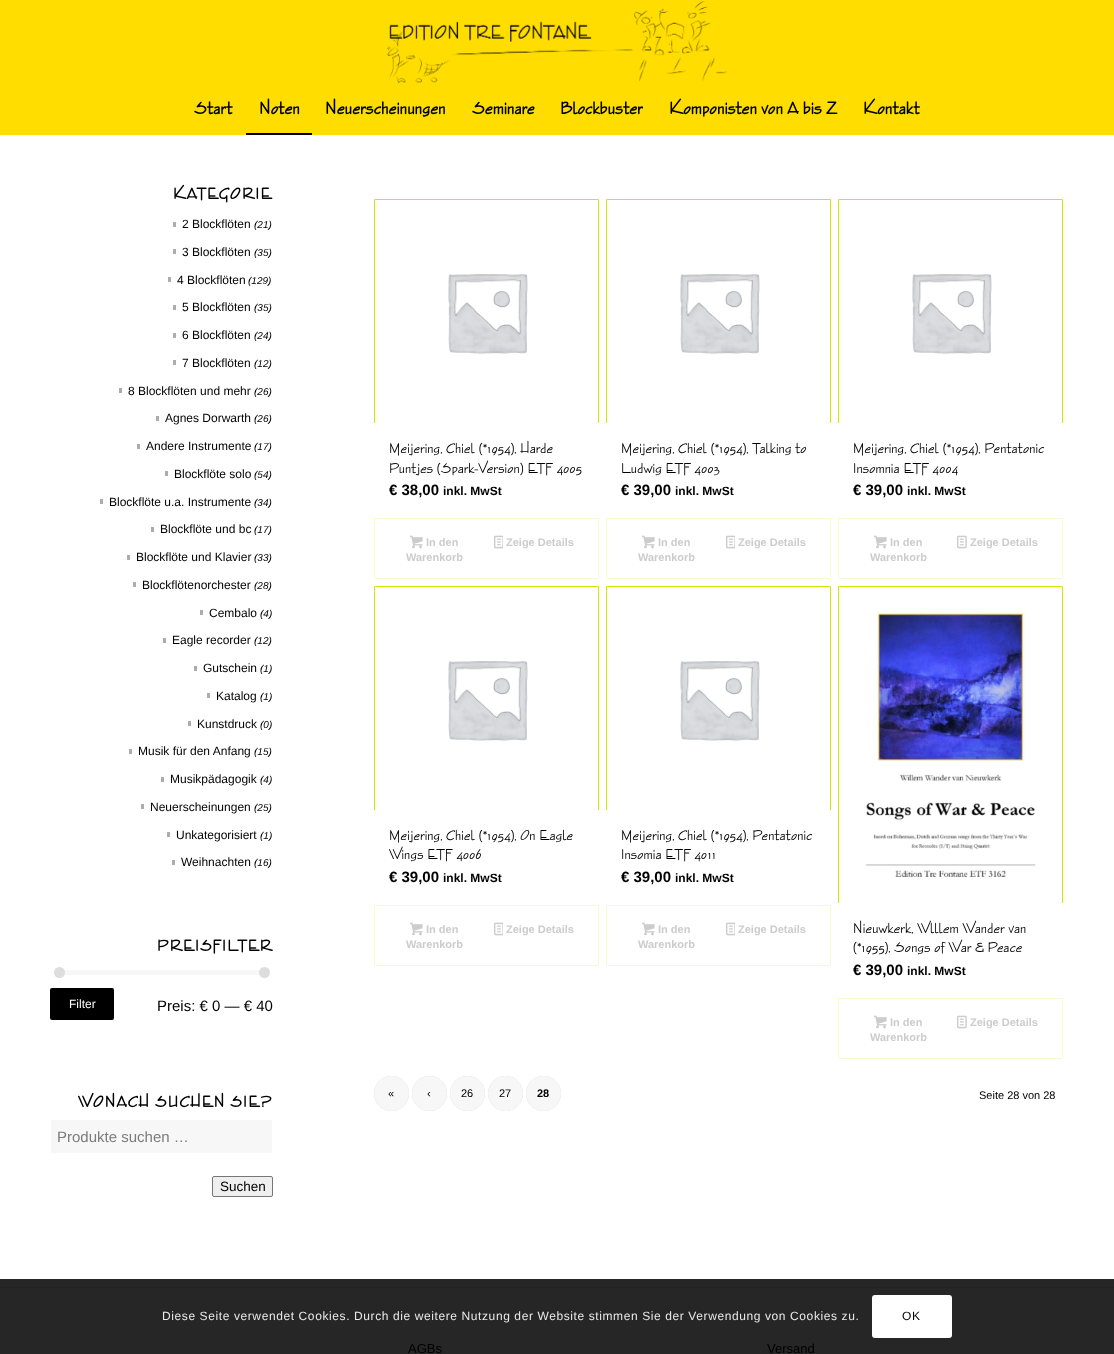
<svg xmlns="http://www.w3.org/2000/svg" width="1114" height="1354">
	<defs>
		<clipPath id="clip1"><rect x="374" y="199" width="225" height="380" rx="2" /></clipPath>
		<clipPath id="clip2"><rect x="606" y="199" width="225" height="380" rx="2" /></clipPath>
		<clipPath id="clip3"><rect x="838" y="199" width="225" height="380" rx="2" /></clipPath>
		<clipPath id="clip4"><rect x="374" y="586" width="225" height="380" rx="2" /></clipPath>
		<clipPath id="clip5"><rect x="606" y="586" width="225" height="380" rx="2" /></clipPath>
		<clipPath id="clip6"><rect x="838" y="586" width="225" height="473" rx="2" /></clipPath>
	</defs>
	<rect width="100%" height="100%" fill="#FFDD00" />
	<image x="387" y="1" width="340" height="82" href="assets/img1.png" />
	<g font-family="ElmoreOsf" font-size="18" font-weight="700" fill="#000000">
		<text x="194" y="114">Start</text>
		<text x="259" y="114">Noten</text>
	</g>
	<rect x="0" y="134" width="1114" height="1" fill="#FFDF0D" />
	<rect x="246" y="133" width="66" height="2" fill="#000000" />
	<g font-family="ElmoreOsf" font-size="18" font-weight="700" fill="#000000">
		<text x="325" y="114">Neuerscheinungen</text>
		<text x="472" y="114">Seminare</text>
		<text x="560" y="114">Blockbuster</text>
		<text x="669" y="114">Komponisten von A bis Z</text>
		<text x="863" y="114">Kontakt</text>
	</g>
	<rect x="0" y="135" width="1114" height="1144" fill="#FFFFFF" />
	<rect x="0" y="1279" width="1114" height="8" fill="#262626" />
	<text x="173" y="199" font-family="ElmoreOsf" font-size="16.5" font-weight="700" letter-spacing="1" fill="#000000">KATEGORIE</text>
	<text x="182" y="228" font-family="Liberation Sans" font-size="12" fill="#000000">2 Blockflöten</text>
	<rect x="173" y="222" width="3" height="5" fill="#ACACAC" />
	<text x="254" y="228" font-family="Liberation Sans" font-size="10" font-style="italic" fill="#000000">(21)</text>
	<text x="182" y="256" font-family="Liberation Sans" font-size="12" fill="#000000">3 Blockflöten</text>
	<rect x="173" y="249" width="3" height="5" fill="#ACACAC" />
	<text x="254" y="256" font-family="Liberation Sans" font-size="10" font-style="italic" fill="#000000">(35)</text>
	<text x="177" y="284" font-family="Liberation Sans" font-size="12" fill="#000000">4 Blockflöten</text>
	<rect x="168" y="277" width="3" height="5" fill="#ACACAC" />
	<text x="248" y="284" font-family="Liberation Sans" font-size="10" font-style="italic" fill="#000000">(129)</text>
	<text x="182" y="311" font-family="Liberation Sans" font-size="12" fill="#000000">5 Blockflöten</text>
	<rect x="173" y="305" width="3" height="5" fill="#ACACAC" />
	<text x="254" y="311" font-family="Liberation Sans" font-size="10" font-style="italic" fill="#000000">(35)</text>
	<text x="182" y="339" font-family="Liberation Sans" font-size="12" fill="#000000">6 Blockflöten</text>
	<rect x="173" y="333" width="3" height="5" fill="#ACACAC" />
	<text x="254" y="339" font-family="Liberation Sans" font-size="10" font-style="italic" fill="#000000">(24)</text>
	<text x="182" y="367" font-family="Liberation Sans" font-size="12" fill="#000000">7 Blockflöten</text>
	<rect x="173" y="360" width="3" height="5" fill="#ACACAC" />
	<text x="254" y="367" font-family="Liberation Sans" font-size="10" font-style="italic" fill="#000000">(12)</text>
	<text x="128" y="395" font-family="Liberation Sans" font-size="12" fill="#000000">8 Blockflöten und mehr</text>
	<rect x="119" y="388" width="3" height="5" fill="#ACACAC" />
	<text x="254" y="395" font-family="Liberation Sans" font-size="10" font-style="italic" fill="#000000">(26)</text>
	<text x="165" y="422" font-family="Liberation Sans" font-size="12" fill="#000000">Agnes Dorwarth</text>
	<rect x="156" y="416" width="3" height="5" fill="#ACACAC" />
	<text x="254" y="422" font-family="Liberation Sans" font-size="10" font-style="italic" fill="#000000">(26)</text>
	<text x="146" y="450" font-family="Liberation Sans" font-size="12" fill="#000000">Andere Instrumente</text>
	<rect x="137" y="444" width="3" height="5" fill="#ACACAC" />
	<text x="254" y="450" font-family="Liberation Sans" font-size="10" font-style="italic" fill="#000000">(17)</text>
	<text x="174" y="478" font-family="Liberation Sans" font-size="12" fill="#000000">Blockflöte solo</text>
	<rect x="165" y="471" width="3" height="5" fill="#ACACAC" />
	<text x="254" y="478" font-family="Liberation Sans" font-size="10" font-style="italic" fill="#000000">(54)</text>
	<text x="109" y="506" font-family="Liberation Sans" font-size="12" fill="#000000">Blockflöte u.a. Instrumente</text>
	<rect x="100" y="499" width="3" height="5" fill="#ACACAC" />
	<text x="254" y="506" font-family="Liberation Sans" font-size="10" font-style="italic" fill="#000000">(34)</text>
	<text x="160" y="533" font-family="Liberation Sans" font-size="12" fill="#000000">Blockflöte und bc</text>
	<rect x="151" y="527" width="3" height="5" fill="#ACACAC" />
	<text x="254" y="533" font-family="Liberation Sans" font-size="10" font-style="italic" fill="#000000">(17)</text>
	<text x="136" y="561" font-family="Liberation Sans" font-size="12" fill="#000000">Blockflöte und Klavier</text>
	<rect x="127" y="555" width="3" height="5" fill="#ACACAC" />
	<text x="254" y="561" font-family="Liberation Sans" font-size="10" font-style="italic" fill="#000000">(33)</text>
	<text x="142" y="589" font-family="Liberation Sans" font-size="12" fill="#000000">Blockflötenorchester</text>
	<rect x="133" y="582" width="3" height="5" fill="#ACACAC" />
	<text x="254" y="589" font-family="Liberation Sans" font-size="10" font-style="italic" fill="#000000">(28)</text>
	<text x="209" y="617" font-family="Liberation Sans" font-size="12" fill="#000000">Cembalo</text>
	<rect x="200" y="610" width="3" height="5" fill="#ACACAC" />
	<text x="260" y="617" font-family="Liberation Sans" font-size="10" font-style="italic" fill="#000000">(4)</text>
	<text x="172" y="644" font-family="Liberation Sans" font-size="12" fill="#000000">Eagle recorder</text>
	<rect x="163" y="638" width="3" height="5" fill="#ACACAC" />
	<text x="254" y="644" font-family="Liberation Sans" font-size="10" font-style="italic" fill="#000000">(12)</text>
	<text x="203" y="672" font-family="Liberation Sans" font-size="12" fill="#000000">Gutschein</text>
	<rect x="194" y="666" width="3" height="5" fill="#ACACAC" />
	<text x="260" y="672" font-family="Liberation Sans" font-size="10" font-style="italic" fill="#000000">(1)</text>
	<text x="216" y="700" font-family="Liberation Sans" font-size="12" fill="#000000">Katalog</text>
	<rect x="207" y="693" width="3" height="5" fill="#ACACAC" />
	<text x="260" y="700" font-family="Liberation Sans" font-size="10" font-style="italic" fill="#000000">(1)</text>
	<text x="197" y="728" font-family="Liberation Sans" font-size="12" fill="#000000">Kunstdruck</text>
	<rect x="188" y="721" width="3" height="5" fill="#ACACAC" />
	<text x="260" y="728" font-family="Liberation Sans" font-size="10" font-style="italic" fill="#000000">(0)</text>
	<text x="138" y="755" font-family="Liberation Sans" font-size="12" fill="#000000">Musik für den Anfang</text>
	<rect x="129" y="749" width="3" height="5" fill="#ACACAC" />
	<text x="254" y="755" font-family="Liberation Sans" font-size="10" font-style="italic" fill="#000000">(15)</text>
	<text x="170" y="783" font-family="Liberation Sans" font-size="12" fill="#000000">Musikpädagogik</text>
	<rect x="161" y="777" width="3" height="5" fill="#ACACAC" />
	<text x="260" y="783" font-family="Liberation Sans" font-size="10" font-style="italic" fill="#000000">(4)</text>
	<text x="150" y="811" font-family="Liberation Sans" font-size="12" fill="#000000">Neuerscheinungen</text>
	<rect x="141" y="804" width="3" height="5" fill="#ACACAC" />
	<text x="254" y="811" font-family="Liberation Sans" font-size="10" font-style="italic" fill="#000000">(25)</text>
	<text x="176" y="839" font-family="Liberation Sans" font-size="12" fill="#000000">Unkategorisiert</text>
	<rect x="167" y="832" width="3" height="5" fill="#ACACAC" />
	<text x="260" y="839" font-family="Liberation Sans" font-size="10" font-style="italic" fill="#000000">(1)</text>
	<text x="181" y="866" font-family="Liberation Sans" font-size="12" fill="#000000">Weihnachten</text>
	<rect x="172" y="860" width="3" height="5" fill="#ACACAC" />
	<text x="254" y="866" font-family="Liberation Sans" font-size="10" font-style="italic" fill="#000000">(16)</text>
	<text x="157" y="951" font-family="ElmoreOsf" font-size="16.5" font-weight="700" letter-spacing="1" fill="#000000">PREISFILTER</text>
	<rect x="59" y="970" width="205" height="5" fill="#F7F7F7" />
	<circle cx="59.5" cy="972.5" r="5.5" fill="#DDDDDD" />
	<circle cx="264.5" cy="972.5" r="5.5" fill="#DDDDDD" />
	<rect x="50" y="988" width="64" height="32" rx="2" fill="#000000" />
	<text x="69" y="1008" font-family="Liberation Sans" font-size="12" fill="#FFFFFF">Filter</text>
	<text x="157" y="1011" font-family="Liberation Sans" font-size="15" fill="#000000">Preis: € 0 — € 40</text>
	<text x="78" y="1107" font-family="ElmoreOsf" font-size="16.5" font-weight="700" letter-spacing="1" fill="#000000">WONACH SUCHEN SIE?</text>
	<rect x="51" y="1120" width="221" height="33" fill="#F7F7F7" />
	<text x="57" y="1142" font-family="Liberation Sans" font-size="15" fill="#7C7C7C">Produkte suchen …</text>
	<rect x="212.5" y="1176.5" width="60" height="20" rx="1.5" fill="#EFEFEF" stroke="#767676" />
	<text x="220" y="1191" font-family="Liberation Sans" font-size="13.5" fill="#000000">Suchen</text>
	<g clip-path="url(#clip1)">
		<path d="M375 199H598C598.5 199 599 199.5 599 200H374C374 199.5 374.5 199 375 199Z" fill="#D3E600" />
	</g>
	<path d="M598 199C598.5 199 599 199.5 599 200V423H598Z" fill="#D3E600" />
	<path d="M375 199V423H374V200C374 199.5 374.5 199 375 199Z" fill="#D3E600" />
	<image x="448" y="274" width="80" height="80" href="assets/img2.png" />
	<g font-family="ElmoreOsf" font-size="15" fill="#000000">
		<text x="389" y="453">Meijering, Chiel (*1954), Harde</text>
		<text x="389" y="473">Puntjes (Spark-Version) ETF 4005</text>
	</g>
	<text x="389" y="495" font-family="Liberation Sans" font-size="15" font-weight="700" fill="#000000">€ 38,00</text>
	<text x="443" y="495" font-family="Liberation Sans" font-size="12" font-weight="700" fill="#000000">inkl. MwSt</text>
	<path d="M374 518V577C374 578 375 579 376 579H597C598 579 599 578 599 577V518ZM375 519V578H598V519Z" fill="#F6FACC" fill-rule="evenodd" />
	<image x="410" y="535" width="13" height="14" href="assets/img3.png" />
	<g font-family="Liberation Sans" font-size="11" font-weight="700" fill="#CCCCCC">
		<text x="426" y="546">In den</text>
		<text x="406" y="561">Warenkorb</text>
	</g>
	<image x="494" y="535" width="9" height="14" href="assets/img4.png" />
	<text x="506" y="546" font-family="Liberation Sans" font-size="11" font-weight="700" fill="#CCCCCC">Zeige Details</text>
	<g clip-path="url(#clip2)">
		<path d="M607 199H830C830.5 199 831 199.5 831 200H606C606 199.5 606.5 199 607 199Z" fill="#D3E600" />
	</g>
	<path d="M830 199C830.5 199 831 199.5 831 200V423H830Z" fill="#D3E600" />
	<path d="M607 199V423H606V200C606 199.5 606.5 199 607 199Z" fill="#D3E600" />
	<image x="680" y="274" width="80" height="80" href="assets/img2.png" />
	<g font-family="ElmoreOsf" font-size="15" fill="#000000">
		<text x="621" y="453">Meijering, Chiel (*1954), Talking to</text>
		<text x="621" y="473">Ludwig ETF 4003</text>
	</g>
	<text x="621" y="495" font-family="Liberation Sans" font-size="15" font-weight="700" fill="#000000">€ 39,00</text>
	<text x="675" y="495" font-family="Liberation Sans" font-size="12" font-weight="700" fill="#000000">inkl. MwSt</text>
	<path d="M606 518V577C606 578 607 579 608 579H829C830 579 831 578 831 577V518ZM607 519V578H830V519Z" fill="#F6FACC" fill-rule="evenodd" />
	<image x="642" y="535" width="13" height="14" href="assets/img3.png" />
	<g font-family="Liberation Sans" font-size="11" font-weight="700" fill="#CCCCCC">
		<text x="658" y="546">In den</text>
		<text x="638" y="561">Warenkorb</text>
	</g>
	<image x="726" y="535" width="9" height="14" href="assets/img4.png" />
	<text x="738" y="546" font-family="Liberation Sans" font-size="11" font-weight="700" fill="#CCCCCC">Zeige Details</text>
	<g clip-path="url(#clip3)">
		<path d="M839 199H1062C1062.5 199 1063 199.5 1063 200H838C838 199.5 838.5 199 839 199Z" fill="#D3E600" />
	</g>
	<path d="M1062 199C1062.5 199 1063 199.5 1063 200V423H1062Z" fill="#D3E600" />
	<path d="M839 199V423H838V200C838 199.5 838.5 199 839 199Z" fill="#D3E600" />
	<image x="912" y="274" width="80" height="80" href="assets/img2.png" />
	<g font-family="ElmoreOsf" font-size="15" fill="#000000">
		<text x="853" y="453">Meijering, Chiel (*1954), Pentatonic</text>
		<text x="853" y="473">Insomnia ETF 4004</text>
	</g>
	<text x="853" y="495" font-family="Liberation Sans" font-size="15" font-weight="700" fill="#000000">€ 39,00</text>
	<text x="907" y="495" font-family="Liberation Sans" font-size="12" font-weight="700" fill="#000000">inkl. MwSt</text>
	<path d="M838 518V577C838 578 839 579 840 579H1061C1062 579 1063 578 1063 577V518ZM839 519V578H1062V519Z" fill="#F6FACC" fill-rule="evenodd" />
	<image x="874" y="535" width="13" height="14" href="assets/img3.png" />
	<g font-family="Liberation Sans" font-size="11" font-weight="700" fill="#CCCCCC">
		<text x="890" y="546">In den</text>
		<text x="870" y="561">Warenkorb</text>
	</g>
	<image x="957" y="535" width="10" height="14" href="assets/img5.png" />
	<text x="970" y="546" font-family="Liberation Sans" font-size="11" font-weight="700" fill="#CCCCCC">Zeige Details</text>
	<g clip-path="url(#clip4)">
		<path d="M375 586H598C598.5 586 599 586.5 599 587H374C374 586.5 374.5 586 375 586Z" fill="#D3E600" />
	</g>
	<path d="M598 586C598.5 586 599 586.5 599 587V810H598Z" fill="#D3E600" />
	<path d="M375 586V810H374V587C374 586.5 374.5 586 375 586Z" fill="#D3E600" />
	<image x="448" y="661" width="80" height="80" href="assets/img2.png" />
	<g font-family="ElmoreOsf" font-size="15" fill="#000000">
		<text x="389" y="840">Meijering, Chiel (*1954), On Eagle</text>
		<text x="389" y="859">Wings ETF 4006</text>
	</g>
	<text x="389" y="882" font-family="Liberation Sans" font-size="15" font-weight="700" fill="#000000">€ 39,00</text>
	<text x="443" y="882" font-family="Liberation Sans" font-size="12" font-weight="700" fill="#000000">inkl. MwSt</text>
	<path d="M374 905V964C374 965 375 966 376 966H597C598 966 599 965 599 964V905ZM375 906V965H598V906Z" fill="#F6FACC" fill-rule="evenodd" />
	<image x="410" y="922" width="13" height="14" href="assets/img3.png" />
	<g font-family="Liberation Sans" font-size="11" font-weight="700" fill="#CCCCCC">
		<text x="426" y="933">In den</text>
		<text x="406" y="948">Warenkorb</text>
	</g>
	<image x="494" y="922" width="9" height="14" href="assets/img4.png" />
	<text x="506" y="933" font-family="Liberation Sans" font-size="11" font-weight="700" fill="#CCCCCC">Zeige Details</text>
	<g clip-path="url(#clip5)">
		<path d="M607 586H830C830.5 586 831 586.5 831 587H606C606 586.5 606.5 586 607 586Z" fill="#D3E600" />
	</g>
	<path d="M830 586C830.5 586 831 586.5 831 587V810H830Z" fill="#D3E600" />
	<path d="M607 586V810H606V587C606 586.5 606.5 586 607 586Z" fill="#D3E600" />
	<image x="680" y="661" width="80" height="80" href="assets/img2.png" />
	<g font-family="ElmoreOsf" font-size="15" fill="#000000">
		<text x="621" y="840">Meijering, Chiel (*1954), Pentatonic</text>
		<text x="621" y="859">Insomia ETF 4011</text>
	</g>
	<text x="621" y="882" font-family="Liberation Sans" font-size="15" font-weight="700" fill="#000000">€ 39,00</text>
	<text x="675" y="882" font-family="Liberation Sans" font-size="12" font-weight="700" fill="#000000">inkl. MwSt</text>
	<path d="M606 905V964C606 965 607 966 608 966H829C830 966 831 965 831 964V905ZM607 906V965H830V906Z" fill="#F6FACC" fill-rule="evenodd" />
	<image x="642" y="922" width="13" height="14" href="assets/img3.png" />
	<g font-family="Liberation Sans" font-size="11" font-weight="700" fill="#CCCCCC">
		<text x="658" y="933">In den</text>
		<text x="638" y="948">Warenkorb</text>
	</g>
	<image x="726" y="922" width="9" height="14" href="assets/img4.png" />
	<text x="738" y="933" font-family="Liberation Sans" font-size="11" font-weight="700" fill="#CCCCCC">Zeige Details</text>
	<g clip-path="url(#clip6)">
		<path d="M839 586H1062C1062.5 586 1063 586.5 1063 587H838C838 586.5 838.5 586 839 586Z" fill="#D3E600" />
	</g>
	<path d="M1062 586C1062.5 586 1063 586.5 1063 587V903H1062Z" fill="#D3E600" />
	<path d="M839 586V903H838V587C838 586.5 838.5 586 839 586Z" fill="#D3E600" />
	<image x="866" y="611" width="170" height="267" href="assets/img6.png" />
	<g font-family="ElmoreOsf" font-size="15" fill="#000000">
		<text x="853" y="933">Nieuwkerk, Wlllem Wander van</text>
		<text x="853" y="952">(*1955), Songs of War &amp; Peace</text>
	</g>
	<text x="853" y="975" font-family="Liberation Sans" font-size="15" font-weight="700" fill="#000000">€ 39,00</text>
	<text x="907" y="975" font-family="Liberation Sans" font-size="12" font-weight="700" fill="#000000">inkl. MwSt</text>
	<path d="M838 998V1057C838 1058 839 1059 840 1059H1061C1062 1059 1063 1058 1063 1057V998ZM839 999V1058H1062V999Z" fill="#F6FACC" fill-rule="evenodd" />
	<image x="874" y="1015" width="13" height="14" href="assets/img3.png" />
	<g font-family="Liberation Sans" font-size="11" font-weight="700" fill="#CCCCCC">
		<text x="890" y="1026">In den</text>
		<text x="870" y="1041">Warenkorb</text>
	</g>
	<image x="957" y="1015" width="10" height="14" href="assets/img5.png" />
	<text x="970" y="1026" font-family="Liberation Sans" font-size="11" font-weight="700" fill="#CCCCCC">Zeige Details</text>
	<rect x="374" y="1076" width="35" height="35" rx="17.5" fill="#000000" fill-opacity="0.2" filter="blur(0.5px)" />
	<circle cx="391.5" cy="1093.5" r="17.5" fill="#F7F7F7" />
	<text x="388" y="1097" font-family="Liberation Sans" font-size="11" fill="#000000">«</text>
	<rect x="412" y="1076" width="35" height="35" rx="17.5" fill="#000000" fill-opacity="0.2" filter="blur(0.5px)" />
	<circle cx="429.5" cy="1093.5" r="17.5" fill="#F7F7F7" />
	<text x="427" y="1097" font-family="Liberation Sans" font-size="11" fill="#000000">‹</text>
	<rect x="450" y="1076" width="35" height="35" rx="17.5" fill="#000000" fill-opacity="0.2" filter="blur(0.5px)" />
	<circle cx="467.5" cy="1093.5" r="17.5" fill="#F7F7F7" />
	<text x="461" y="1097" font-family="Liberation Sans" font-size="11" fill="#000000">26</text>
	<rect x="488" y="1076" width="35" height="35" rx="17.5" fill="#000000" fill-opacity="0.2" filter="blur(0.5px)" />
	<circle cx="505.5" cy="1093.5" r="17.5" fill="#F7F7F7" />
	<text x="499" y="1097" font-family="Liberation Sans" font-size="11" fill="#000000">27</text>
	<rect x="526" y="1076" width="35" height="35" rx="17.5" fill="#000000" fill-opacity="0.2" filter="blur(0.5px)" />
	<circle cx="543.5" cy="1093.5" r="17.5" fill="#F7F7F7" />
	<text x="537" y="1097" font-family="Liberation Sans" font-size="11" font-weight="700" fill="#000000">28</text>
	<text x="979" y="1099" font-family="Liberation Sans" font-size="11" fill="#000000">Seite 28 von 28</text>
	<rect x="0" y="1288" width="1114" height="66" fill="#262626" />
	<rect x="0" y="1287" width="1114" height="1" fill="#232323" />
	<g font-family="Liberation Sans" font-size="13" fill="#000000">
		<text x="408" y="1353">AGBs</text>
		<text x="767" y="1353">Versand</text>
	</g>
	<text x="162" y="1320" font-family="Liberation Sans" font-size="12" letter-spacing="0.6" fill="#E9E9E9">Diese Seite verwendet Cookies. Durch die weitere Nutzung der Website stimmen Sie der Verwendung von Cookies zu.</text>
	<rect x="872" y="1295" width="80" height="43" rx="3" fill="#FFFFFF" />
	<text x="902" y="1320" font-family="Liberation Sans" font-size="12" letter-spacing="0.6" fill="#000000">OK</text>
</svg>
